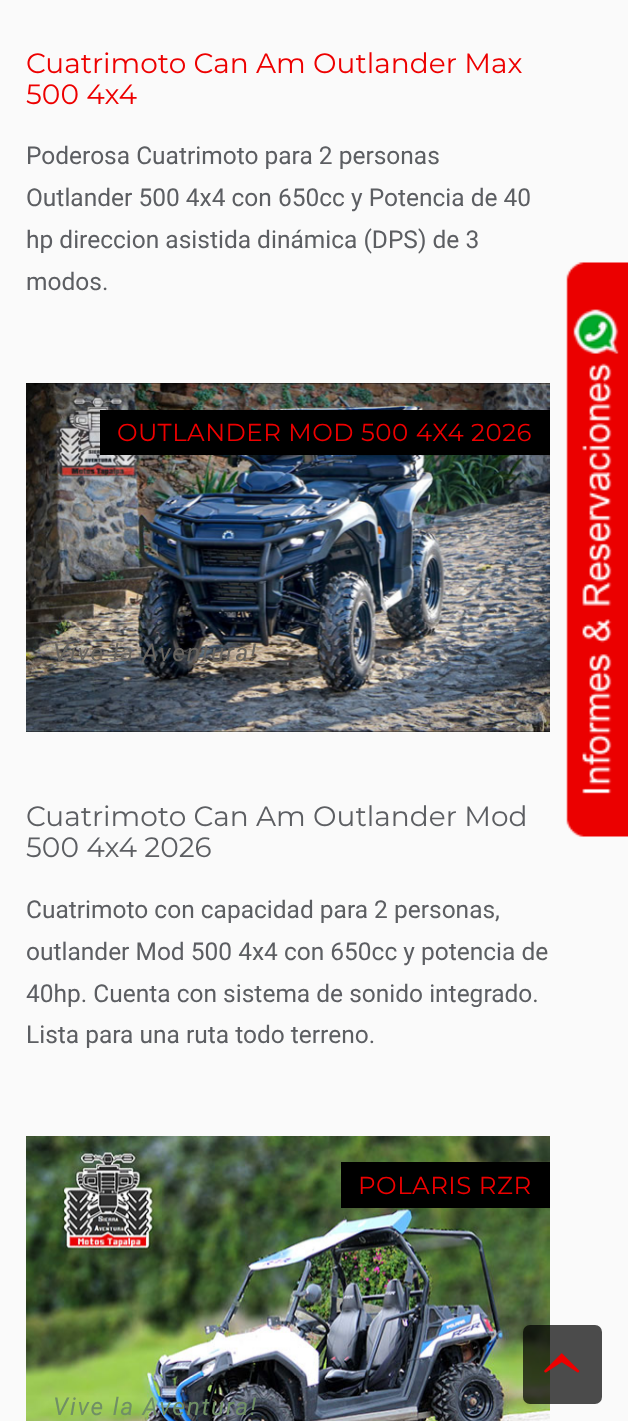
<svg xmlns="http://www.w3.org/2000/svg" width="628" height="1421">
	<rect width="100%" height="100%" fill="#FAFAFA" />
	<g font-family="Montserrat" font-size="28" fill="#ED0000">
		<text x="26" y="73">Cuatrimoto Can Am Outlander Max</text>
		<text x="26" y="104">500 4x4</text>
	</g>
	<g font-family="Roboto" font-size="24.5" fill="#5C5E62">
		<text x="26" y="164">Poderosa Cuatrimoto para 2 personas</text>
		<text x="26" y="206">Outlander 500 4x4 con 650cc y Potencia de 40</text>
		<text x="26" y="248">hp direccion asistida dinámica (DPS) de 3</text>
		<text x="26" y="290">modos.</text>
	</g>
	<rect x="26" y="383" width="524" height="349" fill="#000000" />
	<image x="26" y="383" width="524" height="349" href="assets/img1.png" />
	<rect x="100" y="410" width="450" height="45" fill="#000000" />
	<text x="117" y="441" font-family="Montserrat" font-size="24.5" letter-spacing="0.5" fill="#ED0000">OUTLANDER MOD 500 4X4 2026</text>
	<text x="53" y="661" font-family="Roboto" font-size="24.5" font-style="italic" letter-spacing="1.75" fill="#686560">Vive la Aventura!</text>
	<g font-family="Montserrat" font-size="28" fill="#5C5E62">
		<text x="26" y="826">Cuatrimoto Can Am Outlander Mod</text>
		<text x="26" y="857">500 4x4 2026</text>
	</g>
	<g font-family="Roboto" font-size="24.5" fill="#5C5E62">
		<text x="26" y="918">Cuatrimoto con capacidad para 2 personas,</text>
		<text x="26" y="960">outlander Mod 500 4x4 con 650cc y potencia de</text>
		<text x="26" y="1002">40hp. Cuenta con sistema de sonido integrado.</text>
		<text x="26" y="1043">Lista para una ruta todo terreno.</text>
	</g>
	<image x="26" y="1136" width="524" height="285" href="assets/img2.png" />
	<rect x="341" y="1162" width="209" height="46" fill="#000000" />
	<text x="358" y="1194" font-family="Montserrat" font-size="24.5" letter-spacing="0.5" fill="#ED0000">POLARIS RZR</text>
	<text x="53" y="1415" font-family="Roboto" font-size="24.5" font-style="italic" letter-spacing="1.75" fill="#708F65">Vive la Aventura!</text>
	<image x="566" y="262" width="62" height="575" href="assets/img3.png" />
	<rect x="523" y="1325" width="79" height="79" rx="7" fill="#000000" fill-opacity="0.7" />
	<image x="544" y="1353" width="36" height="20" href="assets/img4.png" />
</svg>
